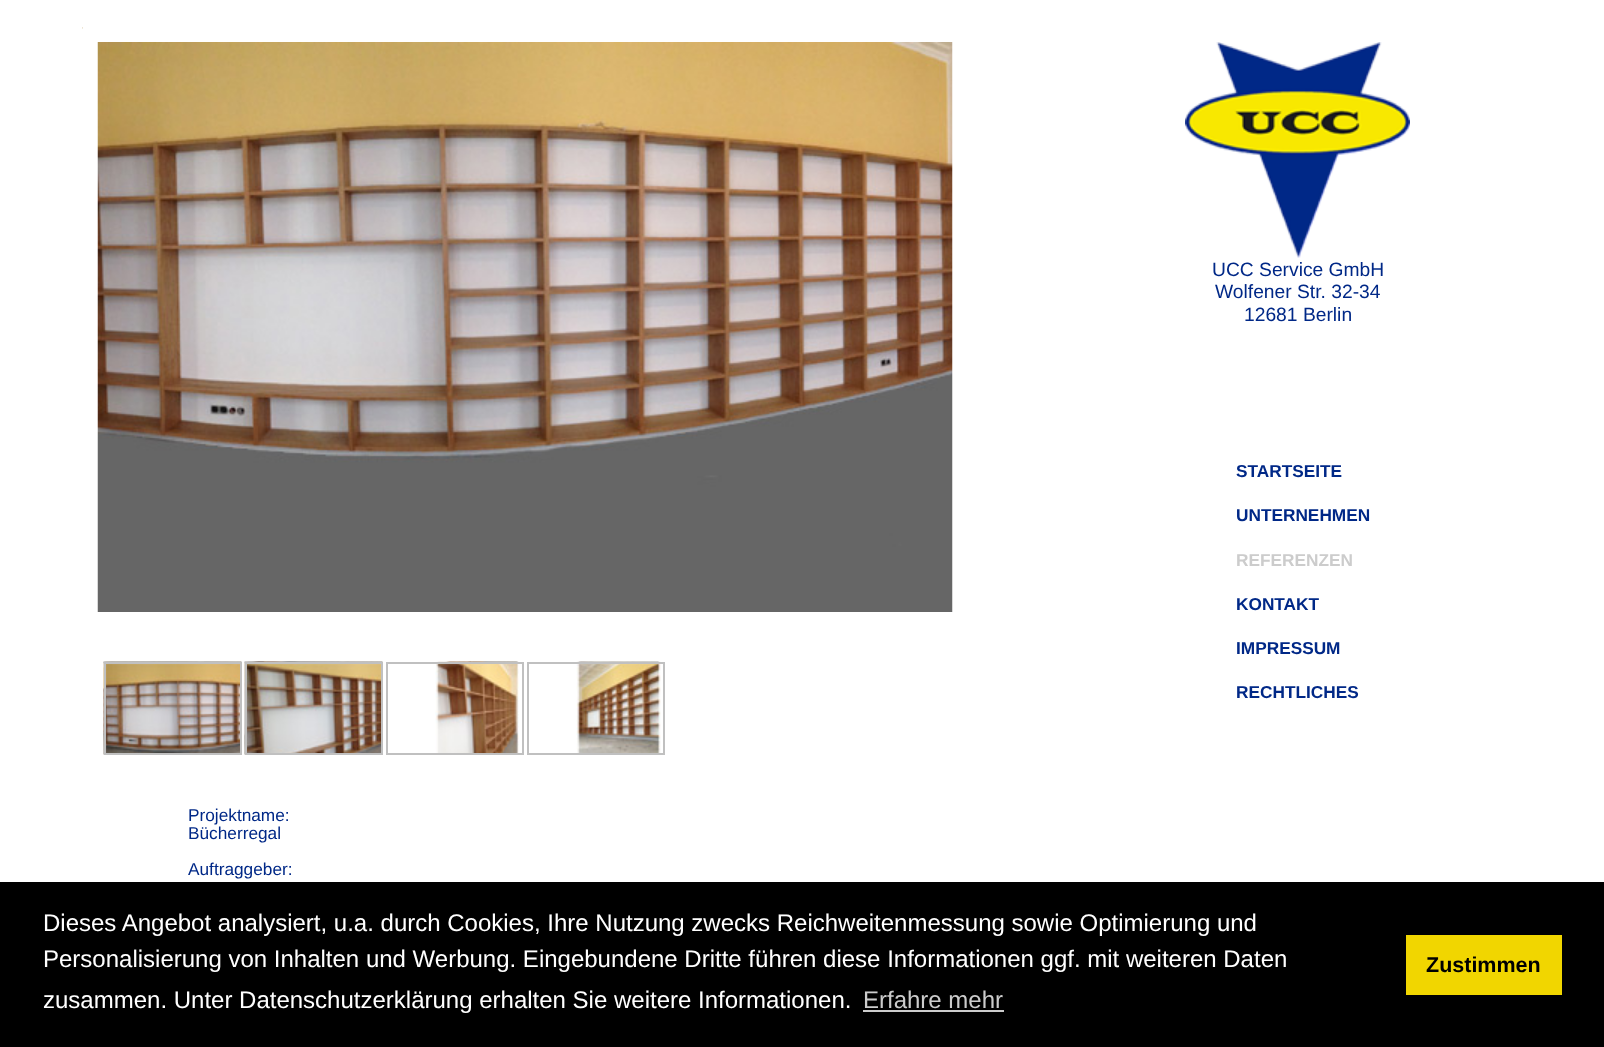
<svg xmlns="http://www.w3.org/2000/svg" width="1604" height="1047">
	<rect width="100%" height="100%" fill="#FFFFFF" />
	<image x="103" y="661" width="139" height="94" href="assets/img1.png" />
	<rect x="105" y="663" width="136" height="91" fill="none" stroke="#C0C0C0" stroke-width="2" />
	<image x="82" y="27" width="1" height="2" href="assets/img2.png" />
	<image x="244" y="661" width="139" height="94" href="assets/img3.png" />
	<rect x="246" y="663" width="136" height="91" fill="none" stroke="#C0C0C0" stroke-width="2" />
	<image x="82" y="27" width="1" height="2" href="assets/img4.png" />
	<image x="435" y="661" width="84" height="92" href="assets/img5.png" />
	<rect x="387" y="663" width="136" height="91" fill="none" stroke="#C0C0C0" stroke-width="2" />
	<image x="82" y="27" width="1" height="2" href="assets/img6.png" />
	<image x="576" y="661" width="85" height="92" href="assets/img7.png" />
	<rect x="528" y="663" width="136" height="91" fill="none" stroke="#C0C0C0" stroke-width="2" />
	<image x="82" y="27" width="1" height="2" href="assets/img8.png" />
	<image x="97" y="42" width="856" height="570" href="assets/img9.png" />
	<image x="1185" y="42" width="225" height="216" href="assets/img10.png" />
	<g font-family="Liberation Sans" font-size="19.25" fill="#002887">
		<text x="1212" y="276">UCC Service GmbH</text>
		<text x="1215" y="298">Wolfener Str. 32-34</text>
		<text x="1244" y="321">12681 Berlin</text>
	</g>
	<g font-family="Liberation Sans" font-size="17.25" font-weight="700" fill="#002887">
		<text x="1236" y="477">STARTSEITE</text>
		<text x="1236" y="521">UNTERNEHMEN</text>
	</g>
	<text x="1236" y="566" font-family="Liberation Sans" font-size="17.25" font-weight="700" fill="#CCCCCC">REFERENZEN</text>
	<g font-family="Liberation Sans" font-size="17.25" font-weight="700" fill="#002887">
		<text x="1236" y="610">KONTAKT</text>
		<text x="1236" y="654">IMPRESSUM</text>
		<text x="1236" y="698">RECHTLICHES</text>
	</g>
	<g font-family="Liberation Sans" font-size="17.25" fill="#002887">
		<text x="188" y="821">Projektname:</text>
		<text x="188" y="839">Bücherregal</text>
		<text x="188" y="875">Auftraggeber:</text>
	</g>
	<rect x="0" y="882" width="1604" height="165" fill="#000000" />
	<g font-family="Liberation Sans" font-size="24" fill="#FFFFFF">
		<text x="43" y="931">Dieses Angebot analysiert, u.a. durch Cookies, Ihre Nutzung zwecks Reichweitenmessung sowie Optimierung und</text>
		<text x="43" y="967">Personalisierung von Inhalten und Werbung. Eingebundene Dritte führen diese Informationen ggf. mit weiteren Daten</text>
		<text x="43" y="1008">zusammen. Unter Datenschutzerklärung erhalten Sie weitere Informationen.</text>
	</g>
	<text x="863" y="1008" font-family="Liberation Sans" font-size="24" fill="#CCCCCC">Erfahre mehr</text>
	<rect x="863" y="1010" width="141" height="2" fill="#CCCCCC" />
	<rect x="1406" y="935" width="156" height="60" fill="#F1D600" />
	<text x="1426" y="972" font-family="Liberation Sans" font-size="21.5" font-weight="700" fill="#000000">Zustimmen</text>
</svg>
